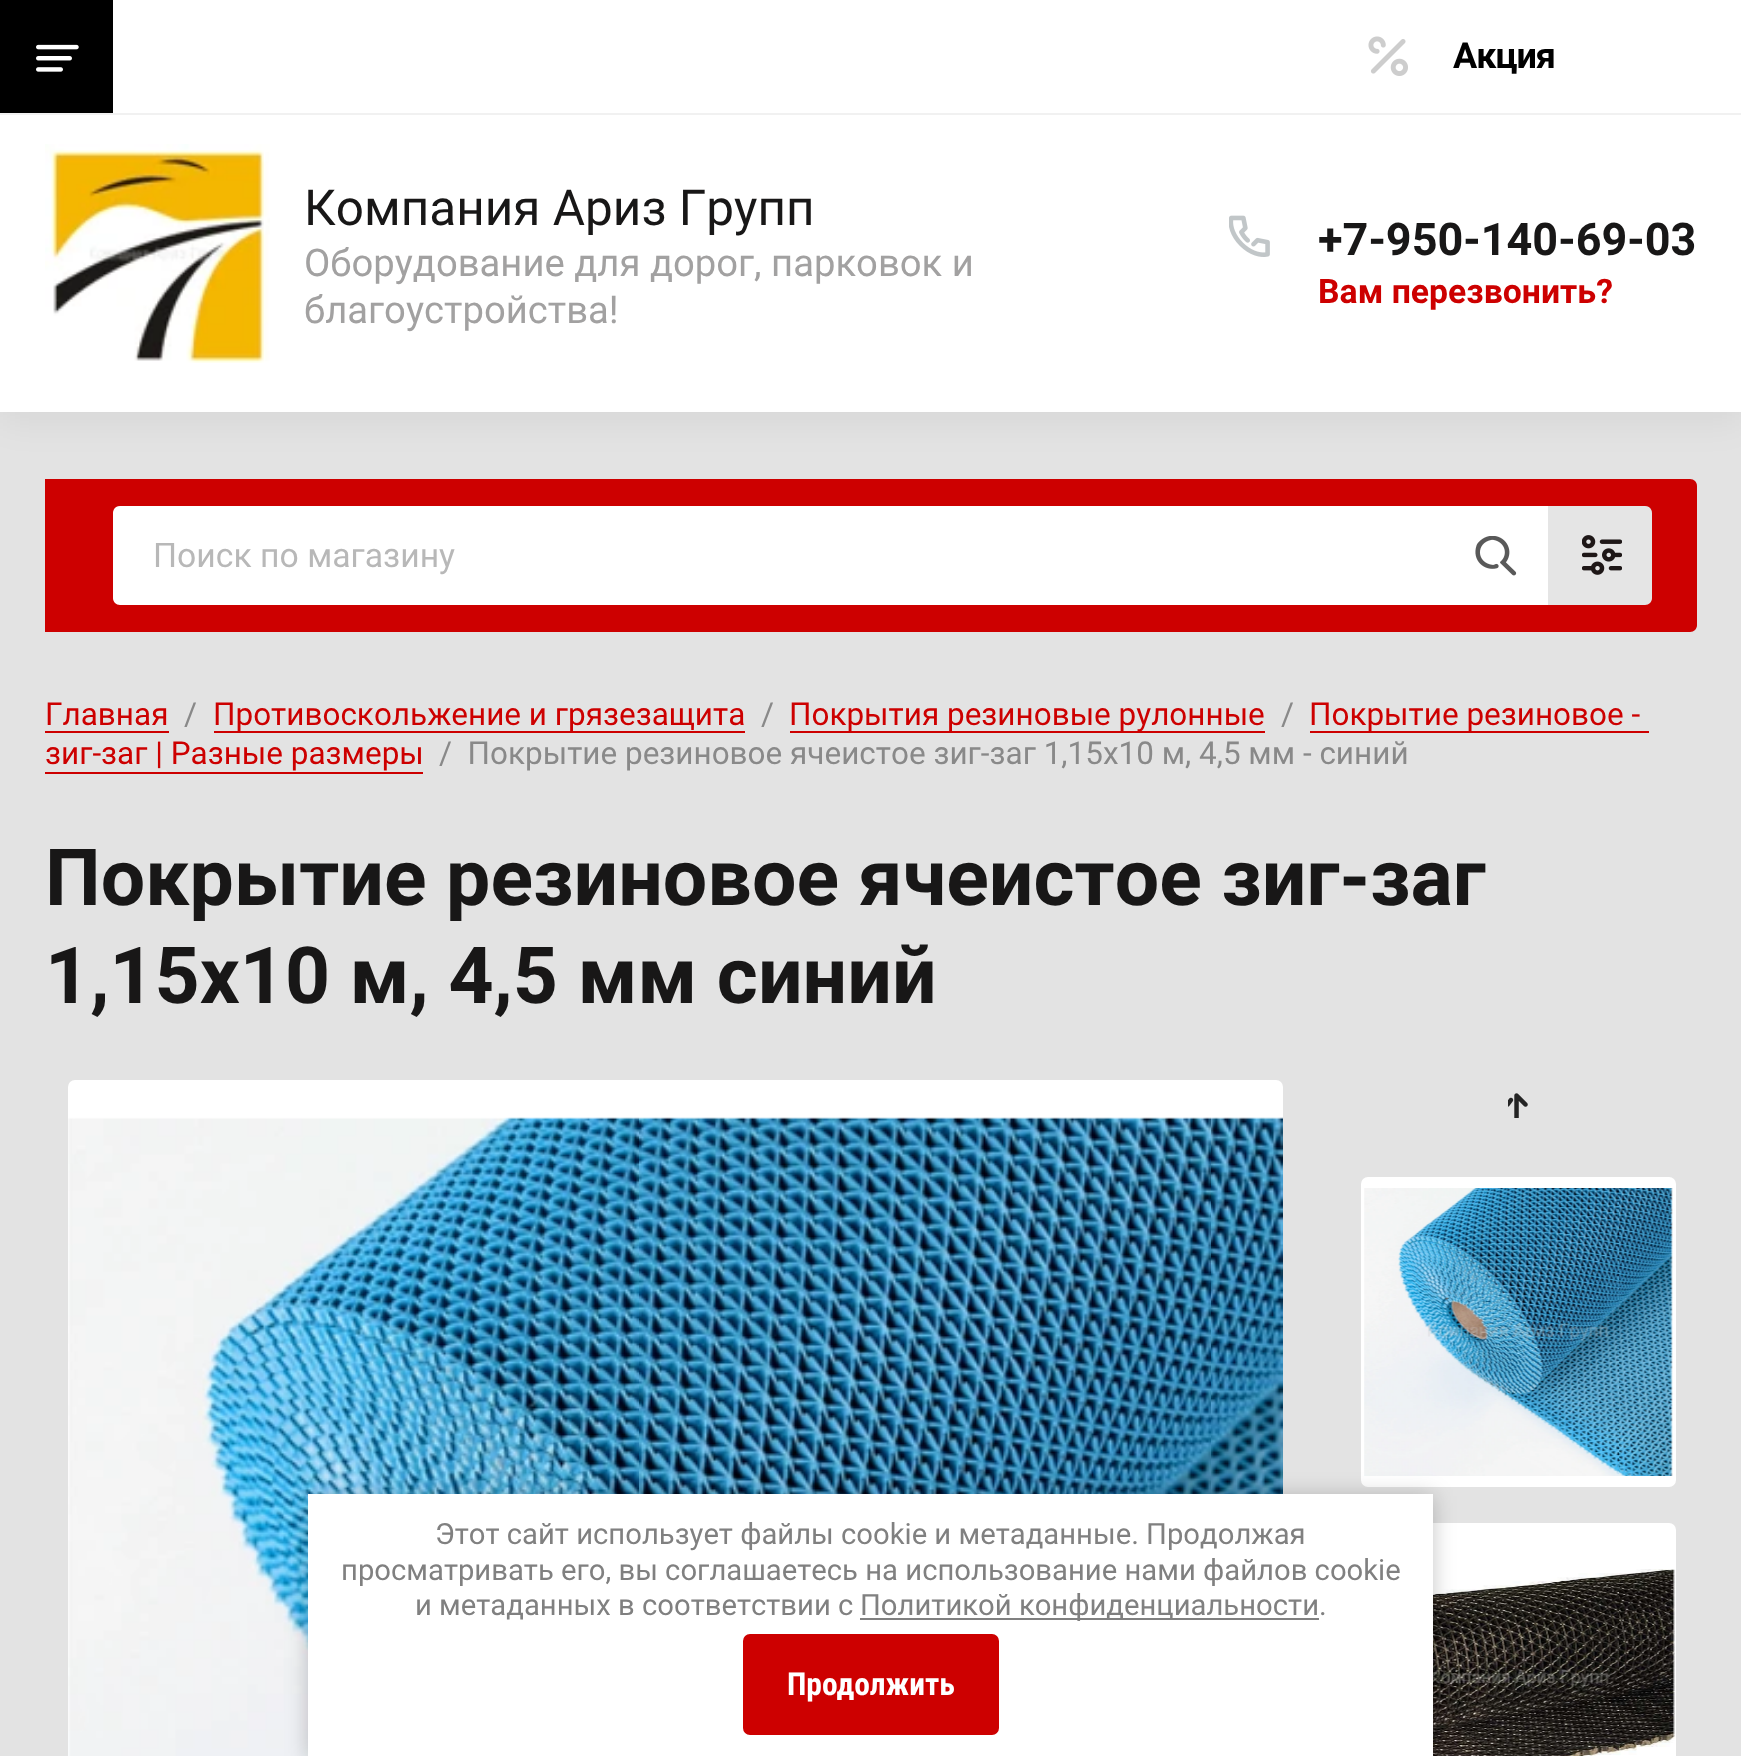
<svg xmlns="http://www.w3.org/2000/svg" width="1741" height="1756">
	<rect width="100%" height="100%" fill="#E3E3E3" />
	<rect x="0" y="11" width="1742" height="412" fill="#000000" fill-opacity="0.05" filter="blur(17px)" />
	<rect x="0" y="0" width="1741" height="412" fill="#FFFFFF" />
	<rect x="0" y="0" width="113" height="113" fill="#000000" />
	<image x="36" y="44" width="43" height="28" href="assets/img1.png" />
	<image x="1368" y="36" width="40" height="40" href="assets/img2.png" />
	<text x="1453" y="68" font-family="Roboto" font-size="36" font-weight="700" letter-spacing="-1" fill="#000000">Акция</text>
	<rect x="0" y="113" width="1741" height="2" fill="#F1F1F1" />
	<image x="45" y="144" width="225" height="219" href="assets/img3.png" />
	<text x="304" y="225" font-family="Roboto" font-size="49.5" fill="#181717">Компания Ариз Групп</text>
	<g font-family="Roboto" font-size="38.25" fill="#A2A1A1">
		<text x="304" y="276">Оборудование для дорог, парковок и</text>
		<text x="304" y="323">благоустройства!</text>
	</g>
	<image x="1229" y="215" width="41" height="42" href="assets/img4.png" />
	<text x="1318" y="255" font-family="Roboto" font-size="45" font-weight="700" fill="#181717">+7-950-140-69-03</text>
	<text x="1318" y="303" font-family="Roboto" font-size="33.75" font-weight="700" fill="#CD0000">Вам перезвонить?</text>
	<path d="M45 479H1690C1694 479 1697 482 1697 486V625C1697 629 1694 632 1690 632H45Z" fill="#CD0000" />
	<path d="M120 506H1548V605H120C116 605 113 602 113 598V513C113 509 116 506 120 506Z" fill="#FFFFFF" />
	<text x="153" y="567" font-family="Roboto" font-size="33.75" fill="#B8B8B8">Поиск по магазину</text>
	<image x="1475" y="536" width="42" height="40" href="assets/img5.png" />
	<path d="M1548 506H1645C1649 506 1652 509 1652 513V598C1652 602 1649 605 1645 605H1548Z" fill="#E5E5E5" />
	<image x="1582" y="535" width="40" height="40" href="assets/img6.png" />
	<text x="45" y="725" font-family="Roboto" font-size="31.5" fill="#CD0000">Главная</text>
	<rect x="45" y="731" width="124" height="2" fill="#CD0000" />
	<text x="184" y="725" font-family="Roboto" font-size="31.5" fill="#898989">/</text>
	<rect x="214" y="731" width="531" height="2" fill="#CD0000" />
	<text x="213" y="725" font-family="Roboto" font-size="31.5" fill="#CD0000">Противоскольжение и грязезащита</text>
	<text x="761" y="725" font-family="Roboto" font-size="31.5" fill="#898989">/</text>
	<rect x="790" y="731" width="475" height="2" fill="#CD0000" />
	<text x="789" y="725" font-family="Roboto" font-size="31.5" fill="#CD0000">Покрытия резиновые рулонные</text>
	<text x="1281" y="725" font-family="Roboto" font-size="31.5" fill="#898989">/</text>
	<rect x="1310" y="731" width="339" height="2" fill="#CD0000" />
	<g font-family="Roboto" font-size="31.5" fill="#CD0000">
		<text x="1309" y="725">Покрытие резиновое -</text>
		<text x="45" y="764">зиг-заг | Разные размеры</text>
	</g>
	<rect x="45" y="772" width="378" height="2" fill="#CD0000" />
	<text x="439" y="764" font-family="Roboto" font-size="31.5" fill="#898989" xml:space="preserve">/  Покрытие резиновое ячеистое зиг-заг 1,15х10 м, 4,5 мм - синий</text>
	<g font-family="Roboto" font-size="78.75" font-weight="700" fill="#181717">
		<text x="45" y="905">Покрытие резиновое ячеистое зиг-заг</text>
		<text x="45" y="1003">1,15х10 м, 4,5 мм синий</text>
	</g>
	<rect x="68" y="1080" width="1215" height="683" rx="7" fill="#FFFFFF" />
	<image x="68" y="1117" width="1215" height="639" href="assets/img7.png" />
	<image x="1508" y="1093" width="20" height="25" href="assets/img8.png" />
	<rect x="1361" y="1177" width="315" height="310" rx="7" fill="#FFFFFF" />
	<image x="1364" y="1188" width="309" height="288" href="assets/img9.png" />
	<rect x="1361" y="1523" width="315" height="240" rx="7" fill="#FFFFFF" />
	<image x="1433" y="1569" width="242" height="187" href="assets/img10.png" />
	<rect x="308" y="1496" width="1125" height="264" fill="#000000" fill-opacity="0.23" filter="blur(11px)" />
	<rect x="308" y="1494" width="1125" height="262" fill="#FFFFFF" />
	<g font-family="Roboto" font-size="29.25" fill="#808080">
		<text x="435" y="1544">Этот сайт использует файлы cookie и метаданные. Продолжая</text>
		<text x="341" y="1580">просматривать его, вы соглашаетесь на использование нами файлов cookie</text>
		<text x="415" y="1615">и метаданных в соответствии с</text>
	</g>
	<rect x="860" y="1618" width="459" height="2" fill="#808080" />
	<text x="860" y="1615" font-family="Roboto" font-size="29.25" fill="#808080">Политикой конфиденциальности.</text>
	<rect x="745.5" y="1636.5" width="251" height="96" rx="4.5" fill="#CD0000" stroke="#CD0000" stroke-width="5" />
	<text x="787" y="1695" font-family="Roboto Condensed" font-size="31.5" font-weight="700" fill="#FFFFFF">Продолжить</text>
</svg>
